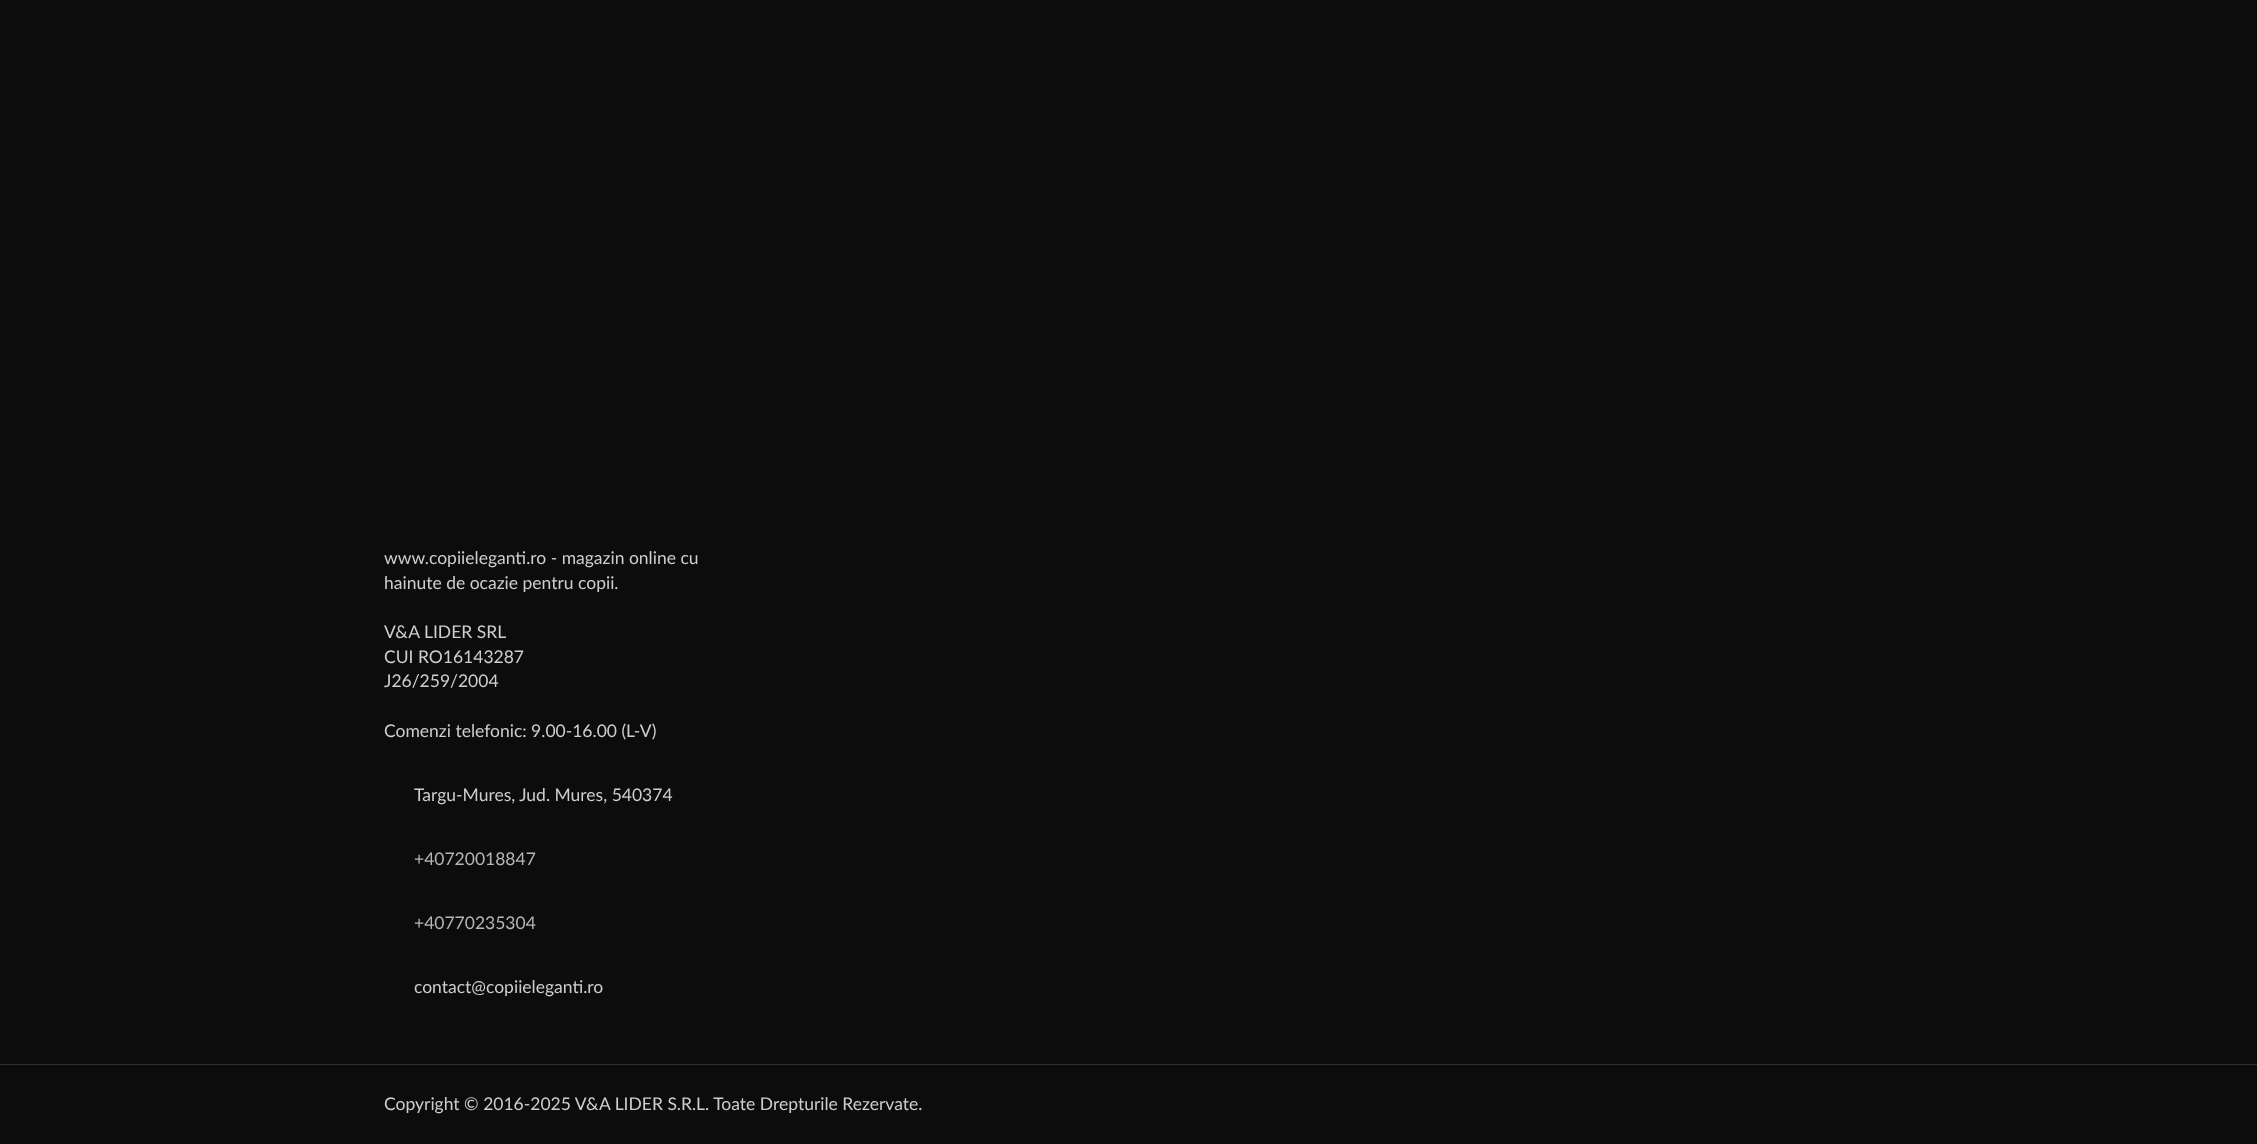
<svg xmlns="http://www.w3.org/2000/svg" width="2257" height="1144">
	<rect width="100%" height="100%" fill="#0C0C0C" />
	<g font-family="Lato" font-size="17.5" fill="#CECECE">
		<text x="384" y="564">www.copiieleganti.ro - magazin online cu</text>
		<text x="384" y="589">hainute de ocazie pentru copii.</text>
		<text x="384" y="638">V&amp;A LIDER SRL</text>
		<text x="384" y="663">CUI RO16143287</text>
		<text x="384" y="687">J26/259/2004</text>
		<text x="384" y="737">Comenzi telefonic: 9.00-16.00 (L-V)</text>
		<text x="414" y="801">Targu-Mures, Jud. Mures, 540374</text>
	</g>
	<g font-family="Lato" font-size="17.5" fill="#B6B6B6">
		<text x="414" y="865">+40720018847</text>
		<text x="414" y="929">+40770235304</text>
	</g>
	<text x="414" y="993" font-family="Lato" font-size="17.5" fill="#CECECE">contact@copiieleganti.ro</text>
	<rect x="0" y="1064" width="2257" height="1" fill="#303030" />
	<text x="384" y="1110" font-family="Lato" font-size="17.5" fill="#CECECE">Copyright © 2016-2025 V&amp;A LIDER S.R.L. Toate Drepturile Rezervate.</text>
</svg>
